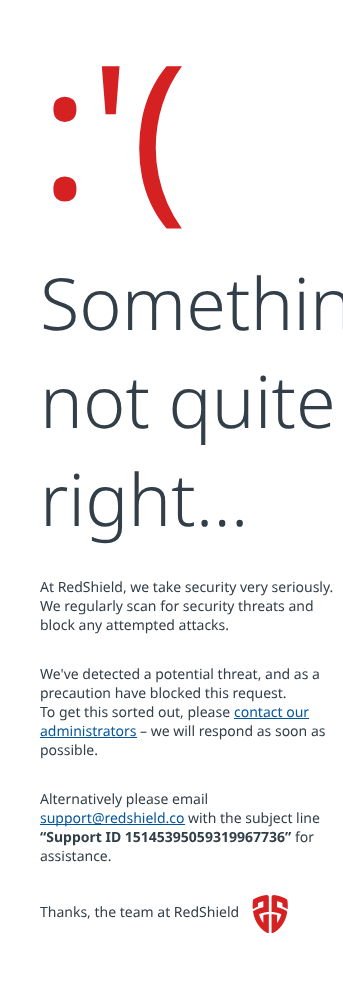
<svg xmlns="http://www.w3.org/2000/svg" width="343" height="995">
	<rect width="100%" height="100%" fill="#FFFFFF" />
	<text x="40" y="199" font-family="Noto Sans" font-size="186" fill="#D62123">:'(</text>
	<g font-family="Noto Sans" font-size="72" font-weight="300" fill="#323E48">
		<text x="40" y="330">Somethin</text>
		<text x="40" y="428">not quite</text>
		<text x="40" y="526">right…</text>
	</g>
	<g font-family="Noto Sans" font-size="14" fill="#323E48">
		<text x="40" y="592">At RedShield, we take security very seriously.</text>
		<text x="40" y="611">We regularly scan for security threats and</text>
		<text x="40" y="630">block any attempted attacks.</text>
		<text x="40" y="679">We've detected a potential threat, and as a</text>
		<text x="40" y="698">precaution have blocked this request.</text>
		<text x="40" y="717">To get this sorted out, please</text>
	</g>
	<text x="234" y="717" font-family="Noto Sans" font-size="14" fill="#03569B">contact our</text>
	<rect x="234" y="718" width="75" height="1" fill="#03569B" />
	<text x="40" y="736" font-family="Noto Sans" font-size="14" fill="#03569B">administrators</text>
	<rect x="40" y="737" width="97" height="1" fill="#03569B" />
	<g font-family="Noto Sans" font-size="14" fill="#323E48">
		<text x="140" y="736">– we will respond as soon as</text>
		<text x="40" y="755">possible.</text>
		<text x="40" y="804">Alternatively please email</text>
	</g>
	<rect x="40" y="824" width="145" height="1" fill="#03569B" />
	<text x="40" y="823" font-family="Noto Sans" font-size="14" fill="#03569B">support@redshield.co</text>
	<text x="188" y="823" font-family="Noto Sans" font-size="14" fill="#323E48">with the subject line</text>
	<text x="40" y="842" font-family="Noto Sans" font-size="14" font-weight="700" fill="#323E48">“Support ID 15145395059319967736”</text>
	<g font-family="Noto Sans" font-size="14" fill="#323E48">
		<text x="295" y="842">for</text>
		<text x="40" y="861">assistance.</text>
		<text x="40" y="917">Thanks, the team at RedShield</text>
	</g>
	<image x="252" y="895" width="36" height="38" href="assets/img1.png" />
</svg>
